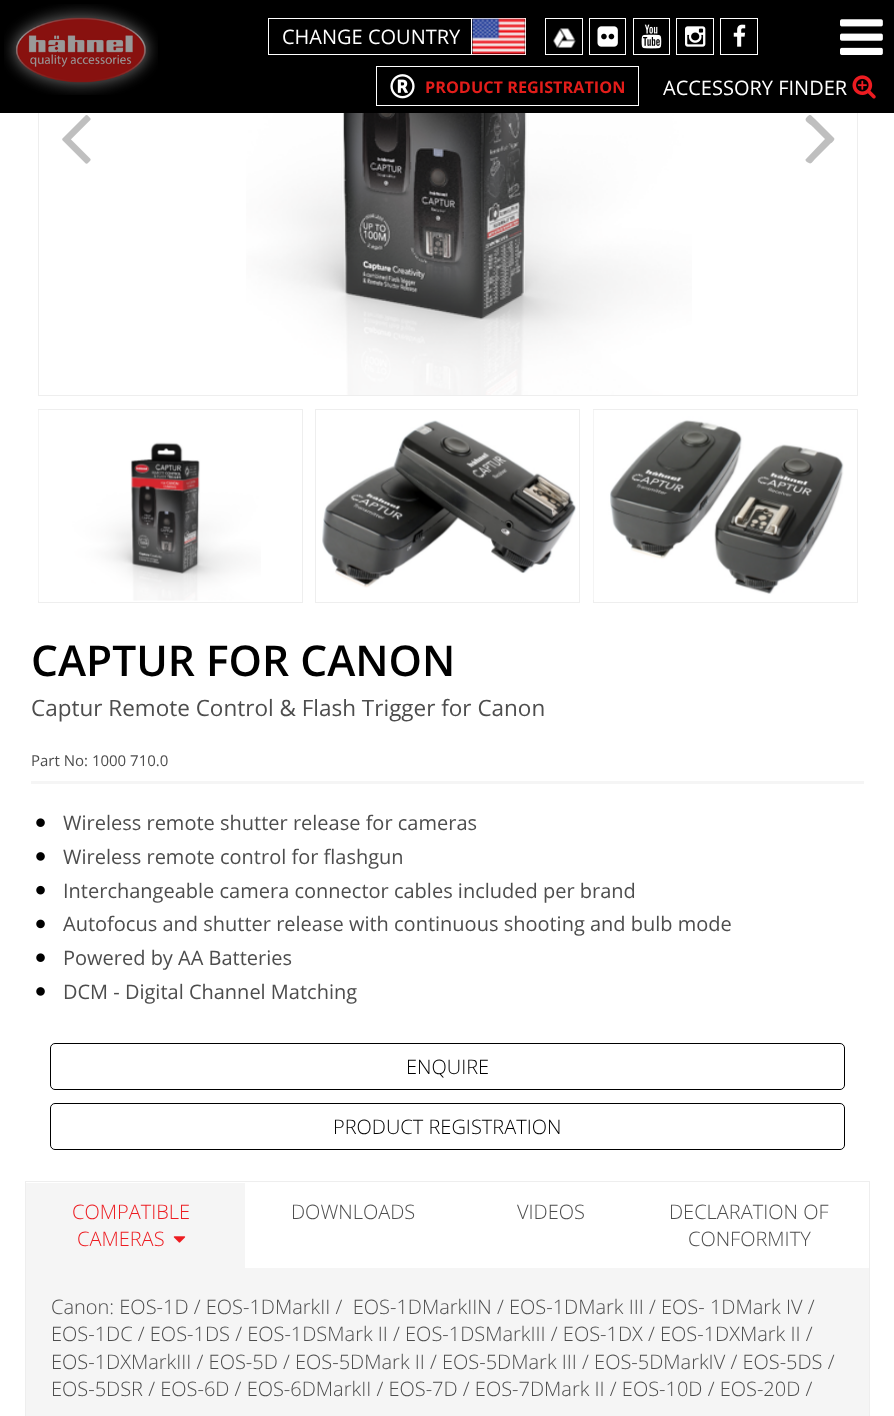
<svg xmlns="http://www.w3.org/2000/svg" width="894" height="1416">
	<rect width="100%" height="100%" fill="#FFFFFF" />
	<rect x="38.5" y="-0.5" width="819" height="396" fill="none" stroke="#EEEEEE" />
	<rect x="0" y="0" width="894" height="113" fill="#000000" />
	<image x="4" y="4" width="154" height="91" href="assets/img1.png" />
	<rect x="268.5" y="18.5" width="257" height="36" fill="none" stroke="#FFFFFF" />
	<text x="282" y="44" font-family="Open Sans" font-size="20" fill="#FFFFFF">CHANGE COUNTRY</text>
	<rect x="471" y="19" width="1" height="35" fill="#FFFFFF" />
	<image x="472" y="18" width="54" height="37" href="assets/img2.png" />
	<image x="553" y="28" width="23" height="20" href="assets/img3.png" />
	<rect x="545.5" y="18.5" width="37" height="36" fill="none" stroke="#FFFFFF" />
	<rect x="589.5" y="18.5" width="36" height="36" fill="none" stroke="#FFFFFF" />
	<image x="597" y="26" width="21" height="21" href="assets/img4.png" />
	<rect x="633.5" y="18.5" width="36" height="36" fill="none" stroke="#FFFFFF" />
	<image x="641" y="24" width="21" height="25" href="assets/img5.png" />
	<rect x="676.5" y="18.5" width="37" height="36" fill="none" stroke="#FFFFFF" />
	<image x="685" y="26" width="21" height="21" href="assets/img6.png" />
	<rect x="720.5" y="18.5" width="37" height="36" fill="none" stroke="#FFFFFF" />
	<image x="733" y="24" width="13" height="23" href="assets/img7.png" />
	<rect x="376.5" y="66.5" width="262" height="39" fill="none" stroke="#FFFFFF" />
	<image x="390" y="74" width="25" height="25" href="assets/img8.png" />
	<text x="425" y="93" font-family="Open Sans" font-size="16.25" font-weight="700" fill="#E31D1A">PRODUCT REGISTRATION</text>
	<text x="663" y="95" font-family="Open Sans" font-size="20" fill="#FFFFFF">ACCESSORY FINDER</text>
	<image x="852" y="75" width="24" height="24" href="assets/img9.png" />
	<image x="840" y="19" width="43" height="36" href="assets/img10.png" />
	<image x="246" y="113" width="446" height="282" href="assets/img11.png" />
	<image x="62" y="115" width="29" height="49" href="assets/img12.png" />
	<path d="M834 138C836 140 830 144 830 144L815 159C814 160 811 165 809 163C808 163 804 160 806 159L825 139L813 127C808 122 803 121 807 117C811 113 811 116 815 119Z" fill="#BFBFBF" />
	<rect x="38.5" y="409.5" width="264" height="193" fill="none" stroke="#EEEEEE" />
	<image x="38" y="410" width="223" height="191" href="assets/img13.png" />
	<rect x="315.5" y="409.5" width="264" height="193" fill="none" stroke="#EEEEEE" />
	<image x="322" y="420" width="254" height="168" href="assets/img14.png" />
	<rect x="593.5" y="409.5" width="264" height="193" fill="none" stroke="#EEEEEE" />
	<image x="593" y="410" width="251" height="190" href="assets/img15.png" />
	<text x="31" y="676" font-family="Open Sans" font-size="42.5" font-weight="600" fill="#000000">CAPTUR FOR CANON</text>
	<text x="31" y="716" font-family="Open Sans" font-size="22.5" fill="#4D4D4D">Captur Remote Control &amp; Flash Trigger for Canon</text>
	<rect x="31" y="781" width="833" height="3" fill="#F5F5F5" />
	<text x="31" y="766" font-family="Open Sans" font-size="15" fill="#4D4D4D">Part No: 1000 710.0</text>
	<image x="36" y="818" width="9" height="9" href="assets/img16.png" />
	<text x="63" y="830" font-family="Open Sans" font-size="20" fill="#4D4D4D">Wireless remote shutter release for cameras</text>
	<image x="36" y="852" width="9" height="9" href="assets/img17.png" />
	<text x="63" y="864" font-family="Open Sans" font-size="20" fill="#4D4D4D">Wireless remote control for flashgun</text>
	<image x="36" y="885" width="9" height="10" href="assets/img18.png" />
	<text x="63" y="898" font-family="Open Sans" font-size="20" fill="#4D4D4D">Interchangeable camera connector cables included per brand</text>
	<image x="36" y="919" width="9" height="10" href="assets/img19.png" />
	<text x="63" y="931" font-family="Open Sans" font-size="20" fill="#4D4D4D">Autofocus and shutter release with continuous shooting and bulb mode</text>
	<image x="36" y="953" width="9" height="9" href="assets/img16.png" />
	<text x="63" y="965" font-family="Open Sans" font-size="20" fill="#4D4D4D">Powered by AA Batteries</text>
	<image x="36" y="987" width="9" height="9" href="assets/img17.png" />
	<text x="63" y="999" font-family="Open Sans" font-size="20" fill="#4D4D4D">DCM - Digital Channel Matching</text>
	<rect x="50.5" y="1043.5" width="794" height="46" rx="4.5" fill="none" stroke="#000000" />
	<text x="406" y="1074" font-family="Open Sans" font-size="20" font-weight="300" fill="#000000">ENQUIRE</text>
	<rect x="50.5" y="1103.5" width="794" height="46" rx="4.5" fill="none" stroke="#000000" />
	<text x="333" y="1134" font-family="Open Sans" font-size="20" font-weight="300" fill="#000000">PRODUCT REGISTRATION</text>
	<rect x="25.5" y="1181.5" width="844" height="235" fill="none" stroke="#EEEEEE" />
	<rect x="26" y="1183" width="219" height="85" fill="#F5F5F5" />
	<g font-family="Open Sans" font-size="20" font-weight="300" fill="#ED1C21">
		<text x="72" y="1219">COMPATIBLE</text>
		<text x="77" y="1246">CAMERAS</text>
	</g>
	<image x="173" y="1236" width="13" height="7" href="assets/img20.png" />
	<g font-family="Open Sans" font-size="20" font-weight="300" fill="#4D4D4D">
		<text x="291" y="1219">DOWNLOADS</text>
		<text x="517" y="1219">VIDEOS</text>
		<text x="669" y="1219">DECLARATION OF</text>
		<text x="688" y="1246">CONFORMITY</text>
	</g>
	<rect x="26" y="1268" width="843" height="148" fill="#F5F5F5" />
	<g font-family="Open Sans" font-size="20" font-weight="300" fill="#4D4D4D">
		<text x="51" y="1314" xml:space="preserve">Canon: EOS-1D / EOS-1DMarkII /  EOS-1DMarkIIN / EOS-1DMark III / EOS- 1DMark IV /</text>
		<text x="51" y="1341">EOS-1DC / EOS-1DS / EOS-1DSMark II / EOS-1DSMarkIII / EOS-1DX / EOS-1DXMark II /</text>
		<text x="51" y="1369">EOS-1DXMarkIII / EOS-5D / EOS-5DMark II / EOS-5DMark III / EOS-5DMarkIV / EOS-5DS /</text>
		<text x="51" y="1396">EOS-5DSR / EOS-6D / EOS-6DMarkII / EOS-7D / EOS-7DMark II / EOS-10D / EOS-20D /</text>
	</g>
</svg>
